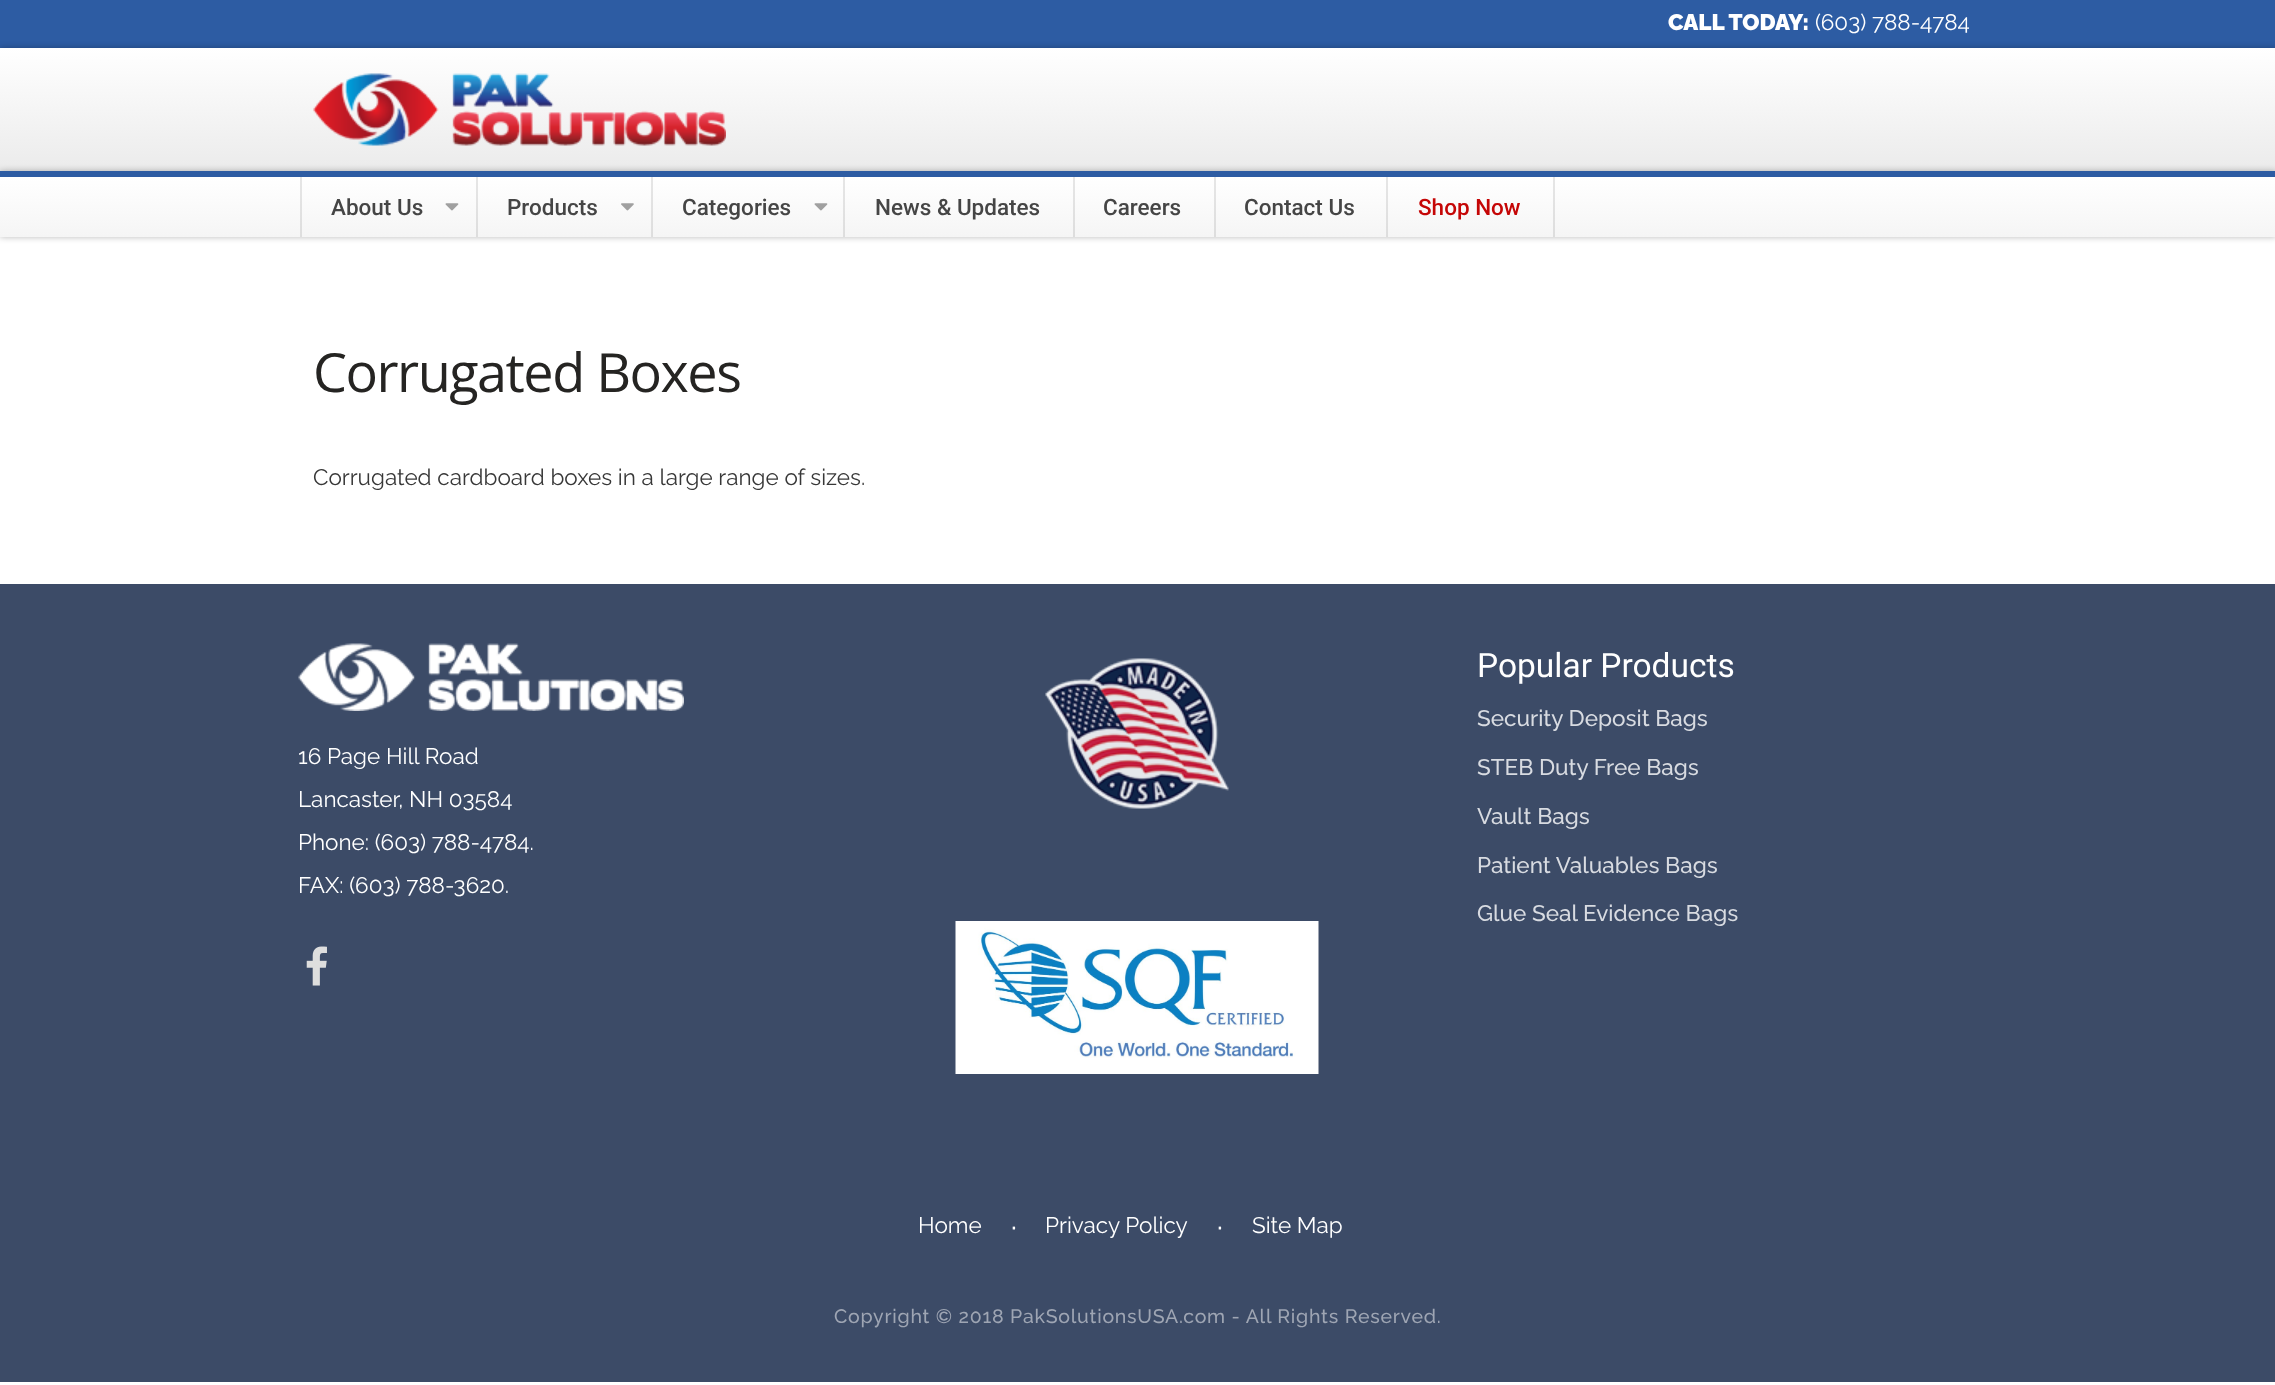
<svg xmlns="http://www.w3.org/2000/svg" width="2275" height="1385">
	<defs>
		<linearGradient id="g1" gradientUnits="userSpaceOnUse" x1="1138" y1="171" x2="1138" y2="48"><stop offset="0" stop-color="#EBEBEB" /><stop offset="1" stop-color="#FFFFFF" /></linearGradient>
		<linearGradient id="g2" gradientUnits="userSpaceOnUse" x1="1138" y1="237" x2="1138" y2="177"><stop offset="0" stop-color="#F5F5F5" /><stop offset="1" stop-color="#FFFFFF" /></linearGradient>
		<linearGradient id="g3" gradientUnits="userSpaceOnUse" x1="1138" y1="237" x2="1138" y2="177"><stop offset="0" stop-color="#DDDDDD" /><stop offset="1" stop-color="#E6E6E6" /></linearGradient>
		<linearGradient id="g4" gradientUnits="userSpaceOnUse" x1="1138" y1="237" x2="1138" y2="177"><stop offset="0" stop-color="#DEDEDE" /><stop offset="1" stop-color="#E6E6E6" /></linearGradient>
	</defs>
	<rect width="100%" height="100%" fill="#FFFFFF" />
	<rect x="0" y="0" width="2275" height="48" fill="#2D5CA3" />
	<rect x="0" y="48" width="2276" height="123" fill="#000000" fill-opacity="0.28" filter="blur(3px)" />
	<rect x="0" y="48" width="2275" height="123" fill="url(#g1)" />
	<text x="1668" y="30" font-family="Raleway" font-size="22.5" font-weight="900" fill="#FFFFFF">CALL TODAY:</text>
	<text x="1815" y="30" font-family="Raleway" font-size="22.5" fill="#FFFFFF">(603) 788-4784</text>
	<image x="313" y="73" width="413" height="73" href="assets/img1.png" />
	<rect x="0" y="171" width="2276" height="66" fill="#000000" fill-opacity="0.28" filter="blur(3px)" />
	<rect x="0" y="177" width="2275" height="60" fill="url(#g2)" />
	<rect x="1387" y="177" width="1" height="60" fill="url(#g3)" />
	<rect x="1214" y="177" width="2" height="60" fill="url(#g3)" />
	<rect x="1386" y="177" width="1" height="60" fill="url(#g4)" />
	<rect x="1073" y="177" width="2" height="60" fill="url(#g3)" />
	<rect x="844" y="177" width="1" height="60" fill="url(#g3)" />
	<rect x="652" y="177" width="1" height="60" fill="url(#g3)" />
	<rect x="843" y="177" width="1" height="60" fill="url(#g4)" />
	<rect x="476" y="177" width="2" height="60" fill="url(#g3)" />
	<rect x="651" y="177" width="1" height="60" fill="url(#g4)" />
	<rect x="301" y="177" width="1" height="60" fill="url(#g3)" />
	<rect x="300" y="177" width="1" height="60" fill="url(#g4)" />
	<rect x="1553" y="177" width="2" height="60" fill="url(#g3)" />
	<rect x="0" y="171" width="2275" height="6" fill="#2D5CA3" />
	<text x="331" y="215" font-family="Roboto" font-size="22.5" font-weight="500" fill="#454545">About Us</text>
	<image x="445" y="203" width="14" height="8" href="assets/img2.png" />
	<text x="507" y="215" font-family="Roboto" font-size="22.5" font-weight="500" fill="#454545">Products</text>
	<image x="621" y="203" width="13" height="8" href="assets/img3.png" />
	<text x="682" y="215" font-family="Roboto" font-size="22.5" font-weight="500" fill="#454545">Categories</text>
	<image x="814" y="203" width="14" height="8" href="assets/img2.png" />
	<g font-family="Roboto" font-size="22.5" font-weight="500" fill="#454545">
		<text x="875" y="215">News &amp; Updates</text>
		<text x="1103" y="215">Careers</text>
		<text x="1244" y="215">Contact Us</text>
	</g>
	<text x="1418" y="215" font-family="Roboto" font-size="22.5" font-weight="500" fill="#C50606">Shop Now</text>
	<text x="313" y="392" font-family="Open Sans" font-size="54" letter-spacing="-1.5" fill="#252422">Corrugated Boxes</text>
	<text x="313" y="485" font-family="Raleway" font-size="22.5" fill="#383838">Corrugated cardboard boxes in a large range of sizes.</text>
	<rect x="0" y="584" width="2275" height="798" fill="#3C4B67" />
	<image x="298" y="643" width="386" height="68" href="assets/img4.png" />
	<g font-family="Raleway" font-size="22.5" fill="#FFFFFF">
		<text x="298" y="764">16 Page Hill Road</text>
		<text x="298" y="807">Lancaster, NH 03584</text>
		<text x="298" y="850">Phone: (603) 788-4784.</text>
		<text x="298" y="893">FAX: (603) 788-3620.</text>
	</g>
	<image x="306" y="946" width="21" height="40" href="assets/img5.png" />
	<image x="1045" y="658" width="184" height="151" href="assets/img6.png" />
	<image x="955" y="921" width="364" height="153" href="assets/img7.png" />
	<text x="1477" y="677" font-family="Roboto" font-size="33.5" fill="#FFFFFF">Popular Products</text>
	<g font-family="Raleway" font-size="22.5" font-weight="500" fill="#D8DBE1">
		<text x="1477" y="726">Security Deposit Bags</text>
		<text x="1477" y="775">STEB Duty Free Bags</text>
		<text x="1477" y="824">Vault Bags</text>
		<text x="1477" y="873">Patient Valuables Bags</text>
		<text x="1477" y="921">Glue Seal Evidence Bags</text>
	</g>
	<text x="918" y="1233" font-family="Raleway" font-size="22.5" fill="#FFFFFF">Home</text>
	<text x="1012" y="1233" font-family="Raleway" font-size="15" font-weight="900" fill="#FFFFFF">·</text>
	<text x="1045" y="1233" font-family="Raleway" font-size="22.5" fill="#FFFFFF">Privacy Policy</text>
	<text x="1218" y="1233" font-family="Raleway" font-size="15" font-weight="900" fill="#FFFFFF">·</text>
	<text x="1252" y="1233" font-family="Raleway" font-size="22.5" fill="#FFFFFF">Site Map</text>
	<text x="834" y="1323" font-family="Raleway" font-size="19.5" font-weight="500" letter-spacing="0.75" fill="#9EA5B3">Copyright © 2018 PakSolutionsUSA.com - All Rights Reserved.</text>
</svg>
